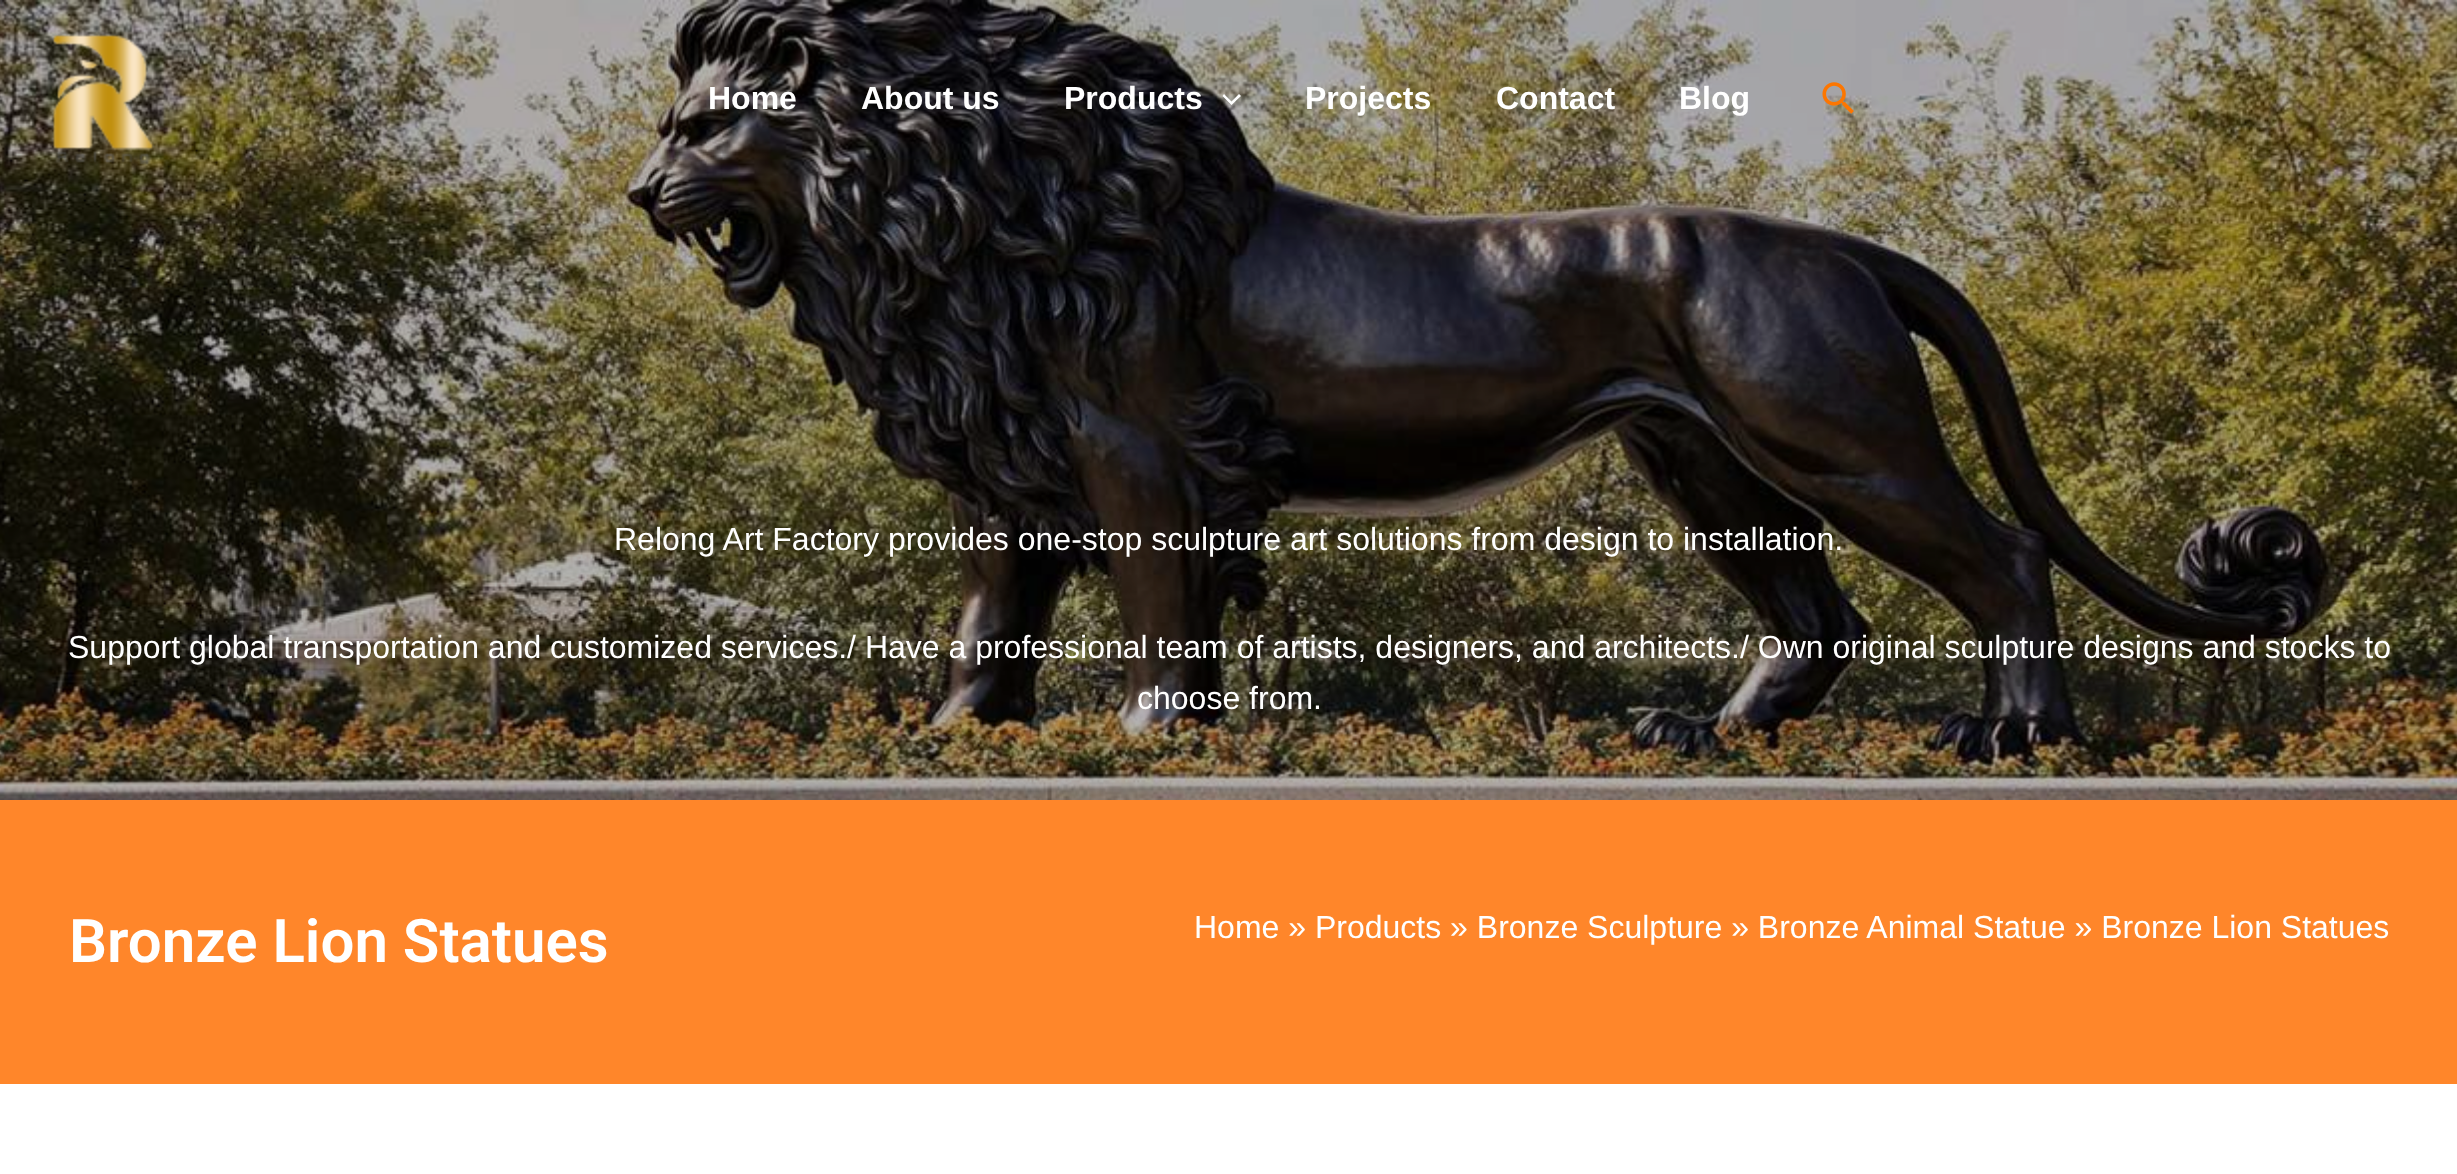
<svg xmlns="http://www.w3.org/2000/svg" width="2457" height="1174">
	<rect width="100%" height="100%" fill="#FFFFFF" />
	<image x="0" y="0" width="2457" height="800" href="assets/img3.png" />
	<image x="51" y="33" width="103" height="133" href="assets/img1.png" />
	<g font-family="Liberation Sans" font-size="32" font-weight="700" fill="#FFFFFF">
		<text x="708" y="109">Home</text>
		<text x="861" y="109">About us</text>
		<text x="1064" y="109">Products</text>
	</g>
	<path d="M1222.5 96L1231.5 105L1241 96L1239 94L1231.5 101.5L1224 94Z" fill="#FFFFFF" />
	<g font-family="Liberation Sans" font-size="32" font-weight="700" fill="#FFFFFF">
		<text x="1305" y="109">Projects</text>
		<text x="1496" y="109">Contact</text>
		<text x="1679" y="109">Blog</text>
	</g>
	<image x="1822" y="82" width="32" height="32" href="assets/img2.png" />
	<g font-family="Liberation Sans" font-size="32" fill="#FFFFFF">
		<text x="614" y="550">Relong Art Factory provides one-stop sculpture art solutions from design to installation.</text>
		<text x="68" y="658">Support global transportation and customized services./ Have a professional team of artists, designers, and architects./ Own original sculpture designs and stocks to</text>
		<text x="1137" y="709">choose from.</text>
	</g>
	<rect x="0" y="800" width="2457" height="284" fill="#FF862A" />
	<text x="69" y="962" font-family="Roboto" font-size="60" font-weight="600" fill="#FFFFFF">Bronze Lion Statues</text>
	<text x="1194" y="938" font-family="Liberation Sans" font-size="32" fill="#FFFFFF">Home » Products » Bronze Sculpture » Bronze Animal Statue » Bronze Lion Statues</text>
</svg>
